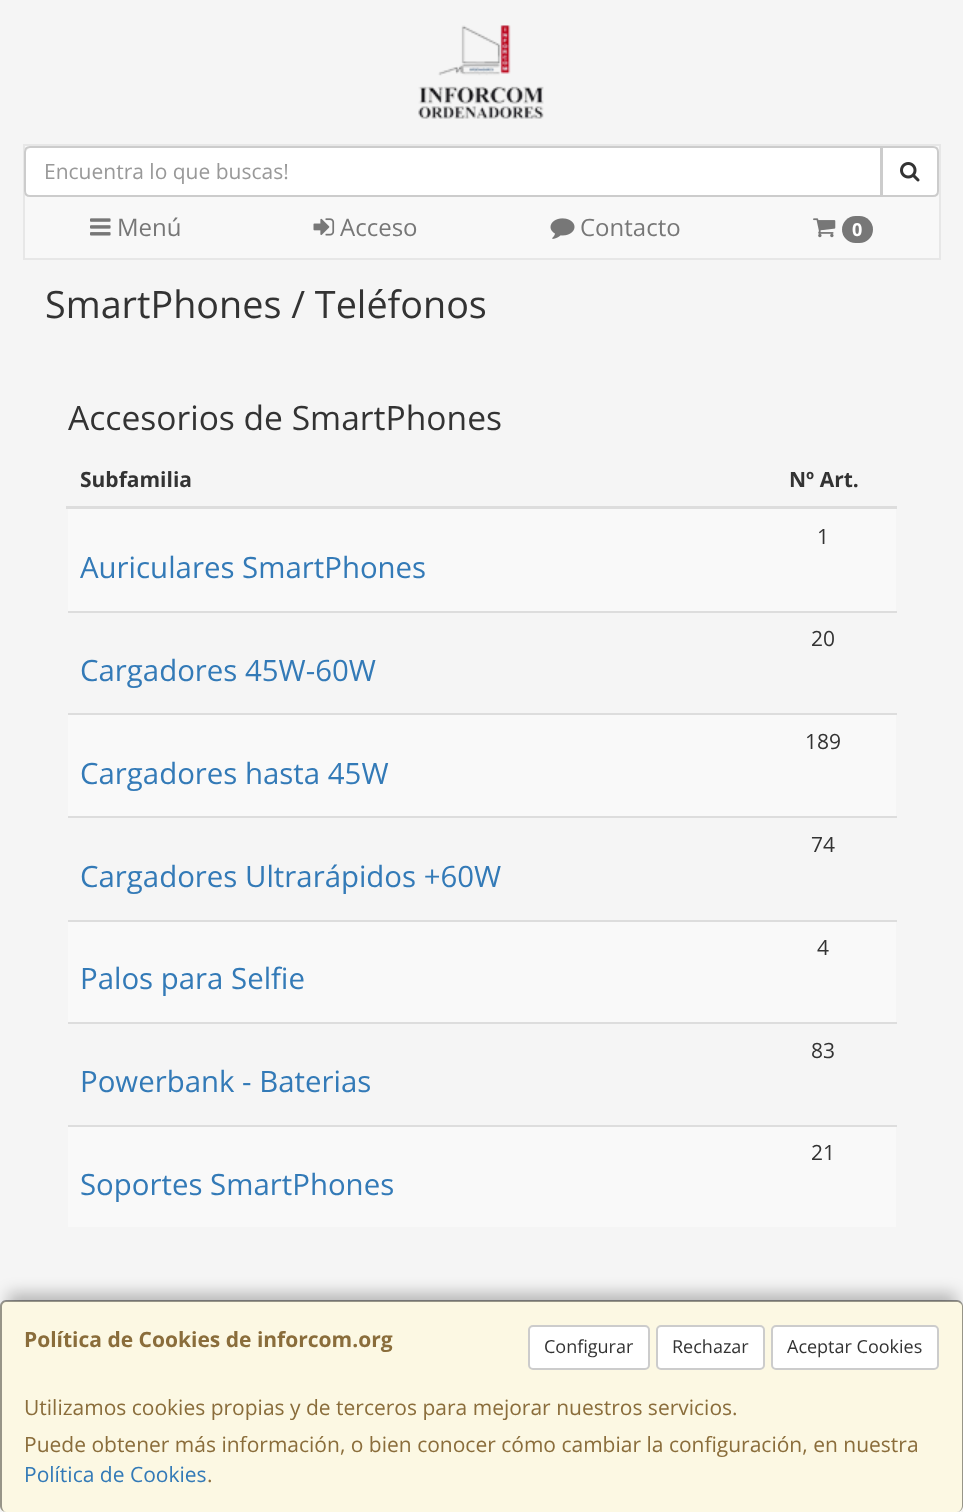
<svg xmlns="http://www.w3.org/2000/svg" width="963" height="1512">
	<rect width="100%" height="100%" fill="#F5F5F5" />
	<image x="418" y="25" width="126" height="94" href="assets/img1.png" />
	<rect x="24" y="145" width="916" height="114" fill="#F8F8F8" stroke="#E7E7E7" stroke-width="2" />
	<path d="M882 147H933C936 147 938 149 938 152V191C938 194 936 196 933 196H882Z" fill="#FFFFFF" stroke="#CCCCCC" stroke-width="2" />
	<path d="M30 146H882V197H30C26.5 197 24 194.5 24 191V152C24 148.5 26.5 146 30 146Z" fill="#FFFFFF" />
	<path d="M30 148H880V195H881V147H31C28 147 26 149 26 152V153C26 151 28 148 30 148Z" fill="#ECECEC" />
	<path d="M30 147H881V196H30C27 196 25 194 25 191V152C25 149 27 147 30 147Z" fill="none" stroke="#CCCCCC" stroke-width="2" />
	<text x="44" y="179" font-family="Open Sans" font-size="21" fill="#999999">Encuentra lo que buscas!</text>
	<image x="900" y="162" width="20" height="20" href="assets/img2.png" />
	<image x="90" y="218" width="21" height="18" href="assets/img3.png" />
	<text x="117" y="236" font-family="Open Sans" font-size="24" fill="#777777">Menú</text>
	<image x="313" y="218" width="22" height="18" href="assets/img4.png" />
	<text x="340" y="236" font-family="Open Sans" font-size="24" fill="#777777">Acceso</text>
	<image x="550" y="218" width="25" height="21" href="assets/img5.png" />
	<text x="580" y="236" font-family="Open Sans" font-size="24" fill="#777777">Contacto</text>
	<image x="813" y="218" width="23" height="20" href="assets/img6.png" />
	<rect x="842" y="216" width="31" height="27" rx="13.5" fill="#777777" />
	<text x="852" y="236" font-family="Open Sans" font-size="18" font-weight="700" fill="#FFFFFF">0</text>
	<text x="45" y="318" font-family="Open Sans" font-size="37.75" fill="#333333">SmartPhones / Teléfonos</text>
	<text x="68" y="430" font-family="Open Sans" font-size="33.6" fill="#333333">Accesorios de SmartPhones</text>
	<text x="80" y="487" font-family="Open Sans" font-size="21" font-weight="700" fill="#333333">Subfamilia</text>
	<rect x="66" y="506" width="831" height="3" fill="#DDDDDD" />
	<text x="789" y="487" font-family="Open Sans" font-size="21" font-weight="700" fill="#333333">Nº Art.</text>
	<rect x="68" y="509" width="828" height="102" fill="#F9F9F9" />
	<text x="817" y="544" font-family="Open Sans" font-size="21" fill="#333333">1</text>
	<text x="80" y="578" font-family="Open Sans" font-size="29.4" fill="#337AB7">Auriculares SmartPhones</text>
	<rect x="68" y="611" width="829" height="2" fill="#DDDDDD" />
	<text x="811" y="646" font-family="Open Sans" font-size="21" fill="#333333">20</text>
	<text x="80" y="681" font-family="Open Sans" font-size="29.4" fill="#337AB7">Cargadores 45W-60W</text>
	<rect x="68" y="715" width="828" height="101" fill="#F9F9F9" />
	<rect x="68" y="713" width="829" height="2" fill="#DDDDDD" />
	<text x="805" y="749" font-family="Open Sans" font-size="21" fill="#333333">189</text>
	<text x="80" y="784" font-family="Open Sans" font-size="29.4" fill="#337AB7">Cargadores hasta 45W</text>
	<rect x="68" y="816" width="829" height="2" fill="#DDDDDD" />
	<text x="811" y="852" font-family="Open Sans" font-size="21" fill="#333333">74</text>
	<text x="80" y="887" font-family="Open Sans" font-size="29.4" fill="#337AB7">Cargadores Ultrarápidos +60W</text>
	<rect x="68" y="922" width="828" height="100" fill="#F9F9F9" />
	<rect x="68" y="920" width="829" height="2" fill="#DDDDDD" />
	<text x="817" y="955" font-family="Open Sans" font-size="21" fill="#333333">4</text>
	<text x="80" y="989" font-family="Open Sans" font-size="29.4" fill="#337AB7">Palos para Selfie</text>
	<rect x="68" y="1022" width="829" height="2" fill="#DDDDDD" />
	<text x="811" y="1058" font-family="Open Sans" font-size="21" fill="#333333">83</text>
	<text x="80" y="1092" font-family="Open Sans" font-size="29.4" fill="#337AB7">Powerbank - Baterias</text>
	<rect x="68" y="1127" width="828" height="100" fill="#F9F9F9" />
	<rect x="68" y="1125" width="829" height="2" fill="#DDDDDD" />
	<text x="811" y="1160" font-family="Open Sans" font-size="21" fill="#333333">21</text>
	<text x="80" y="1195" font-family="Open Sans" font-size="29.4" fill="#337AB7">Soportes SmartPhones</text>
	<rect x="8" y="1293" width="948" height="197" fill="#000000" fill-opacity="0.25" filter="blur(7.5px)" />
	<rect x="0" y="1301" width="963" height="211" rx="6" fill="#FCF8E3" />
	<path d="M6 1300H957C960 1300 963 1303 963 1306V1506C963 1509 960 1512 957 1512H6C3 1512 0 1509 0 1506V1306C0 1303 3 1300 6 1300ZM6 1302H957C959 1302 962 1304 962 1306V1506C962 1509 959 1512 957 1512H6C4 1512 2 1509 2 1506V1306C2 1304 4 1302 6 1302Z" fill="#000000" fill-opacity="0.4" fill-rule="evenodd" />
	<text x="24" y="1347" font-family="Open Sans" font-size="21" font-weight="700" fill="#8A6D3B">Política de Cookies de inforcom.org</text>
	<rect x="529" y="1326" width="120" height="43" rx="4" fill="#FFFFFF" stroke="#CCCCCC" stroke-width="2" />
	<text x="544" y="1353" font-family="Open Sans" font-size="18" fill="#333333">Configurar</text>
	<rect x="657" y="1326" width="107" height="43" rx="4" fill="#FFFFFF" stroke="#CCCCCC" stroke-width="2" />
	<text x="672" y="1353" font-family="Open Sans" font-size="18" fill="#333333">Rechazar</text>
	<rect x="772" y="1326" width="166" height="43" rx="4" fill="#FFFFFF" stroke="#CCCCCC" stroke-width="2" />
	<text x="787" y="1353" font-family="Open Sans" font-size="18" fill="#333333">Aceptar Cookies</text>
	<g font-family="Open Sans" font-size="21" fill="#8A6D3B">
		<text x="24" y="1415">Utilizamos cookies propias y de terceros para mejorar nuestros servicios.</text>
		<text x="24" y="1452">Puede obtener más información, o bien conocer cómo cambiar la configuración, en nuestra</text>
	</g>
	<text x="24" y="1482" font-family="Open Sans" font-size="21" fill="#337AB7">Política de Cookies</text>
	<text x="207" y="1482" font-family="Open Sans" font-size="21" fill="#8A6D3B">.</text>
</svg>
